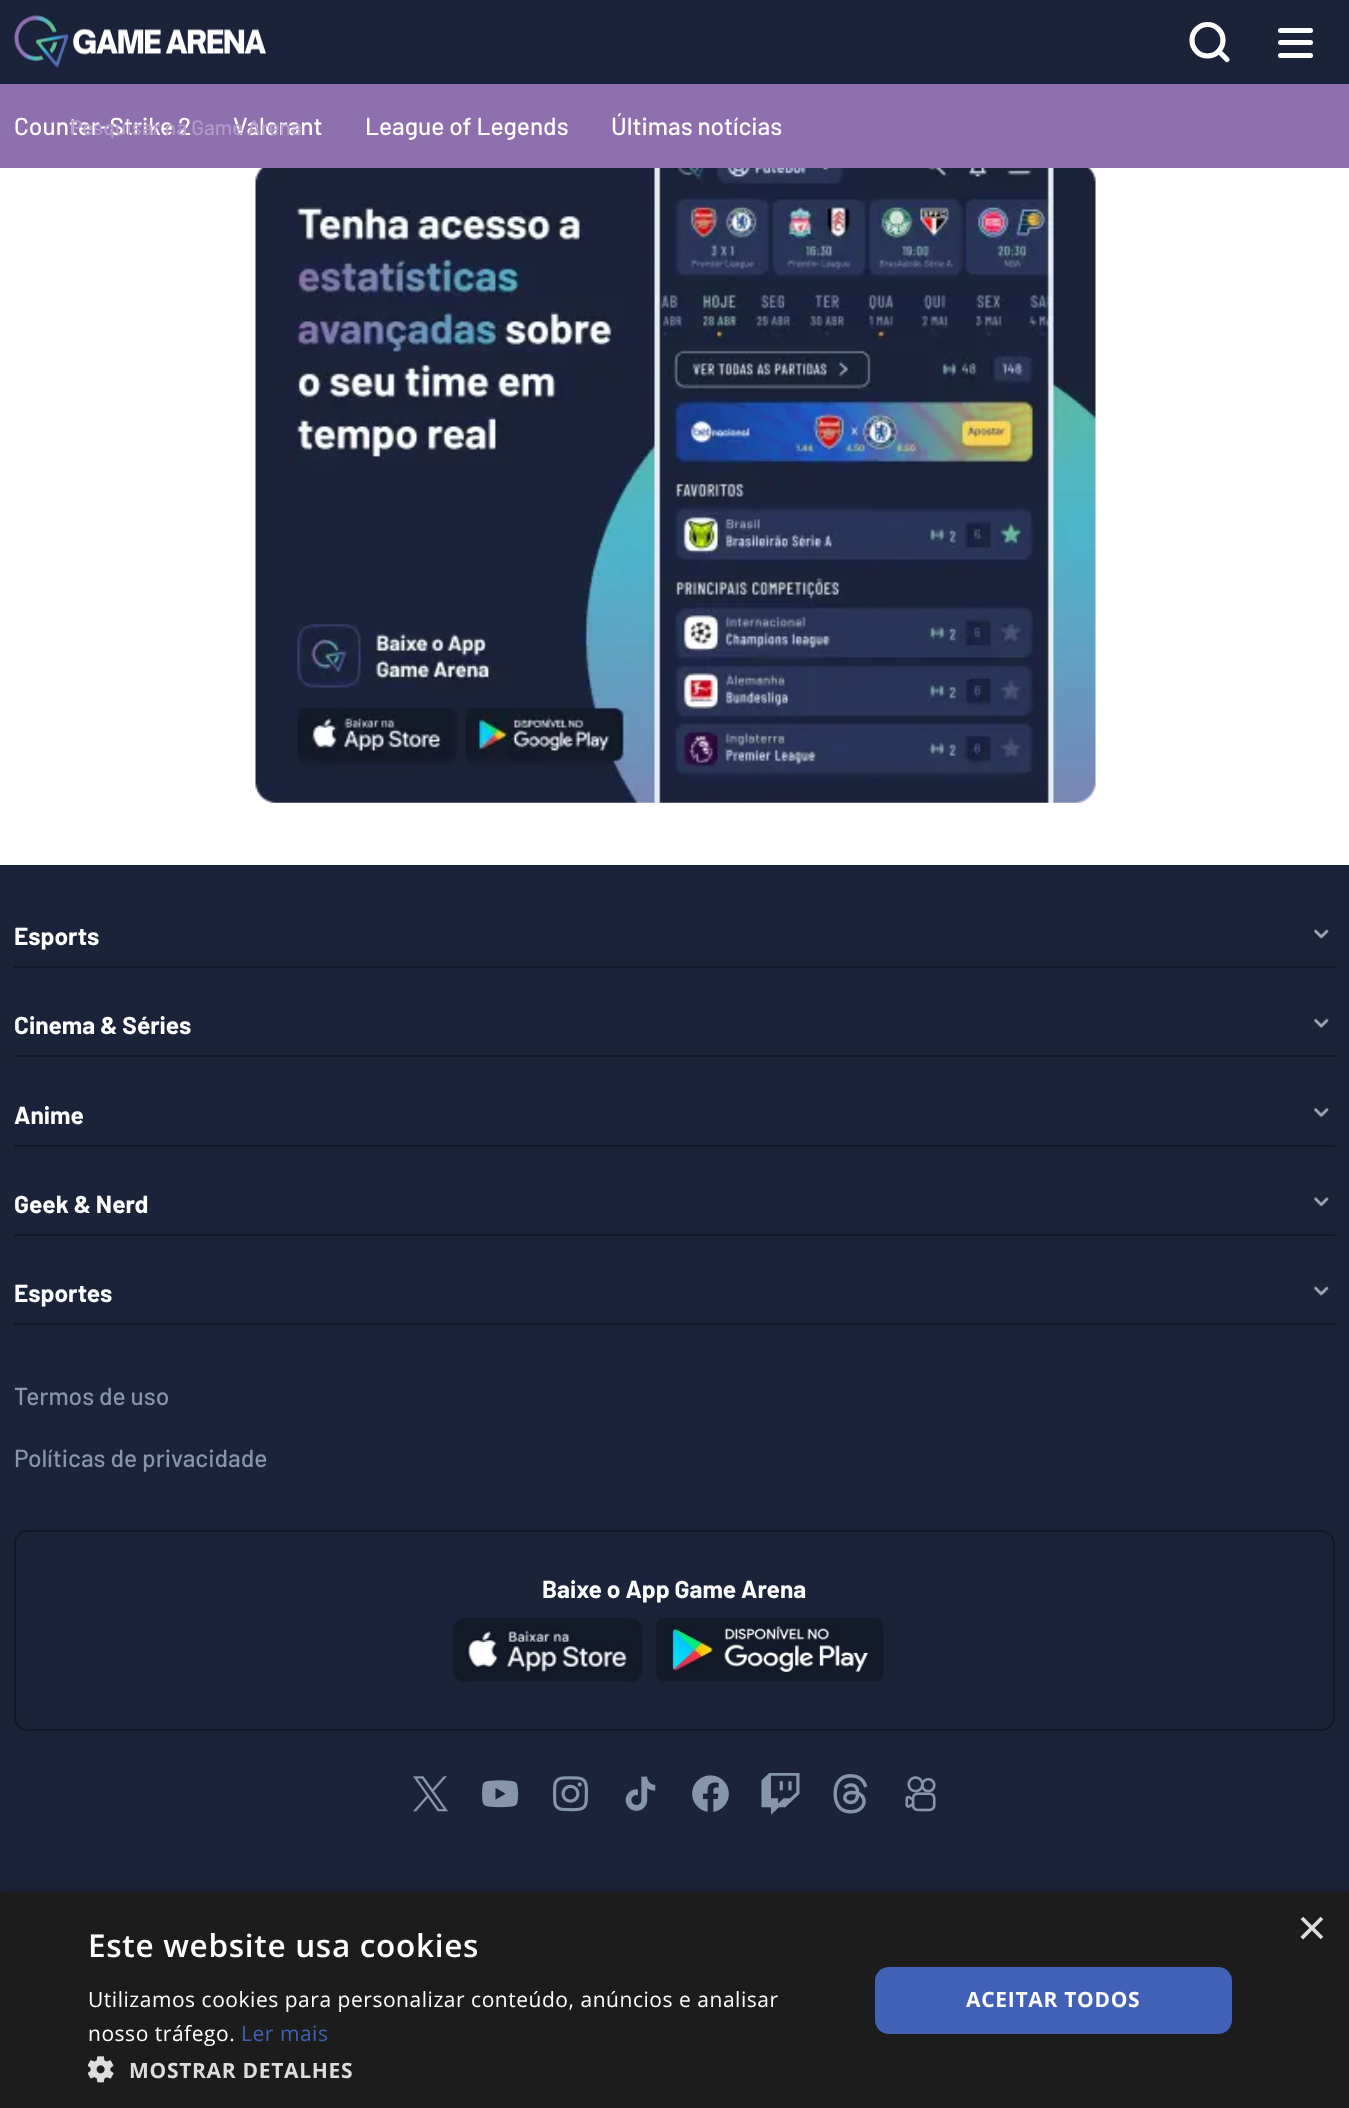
<svg xmlns="http://www.w3.org/2000/svg" width="1349" height="2108">
	<defs>
		<clipPath id="clip1"><rect x="70" y="114" width="1265" height="24" /></clipPath>
	</defs>
	<rect width="100%" height="100%" fill="#FFFFFF" />
	<rect x="0" y="0" width="1349" height="84" fill="#1B233A" />
	<image x="14" y="15" width="252" height="53" href="assets/img1.png" />
	<path d="M1219 51.5L1227 59.5" fill="none" stroke="#FFFFFF" stroke-width="5.2" stroke-linecap="round" stroke-linejoin="round" />
	<path d="M1223 40C1223 31.5 1216 24.5 1207.5 24.5C1199 24.5 1192 31.5 1192 40C1192 49 1199 56 1207.5 56C1216 56 1223 49 1223 40Z" fill="none" stroke="#FFFFFF" stroke-width="5.2" stroke-linejoin="round" />
	<rect x="1278" y="28" width="35" height="5" rx="2.5" fill="#FFFFFF" />
	<rect x="1278" y="40" width="35" height="5" rx="2.5" fill="#FFFFFF" />
	<rect x="1278" y="53" width="35" height="5" rx="2.5" fill="#FFFFFF" />
	<rect x="0" y="84" width="1349" height="84" fill="#8F6FAE" />
	<g font-family="Barlow" font-size="24.5" font-weight="500" fill="#FFFFFF">
		<text x="14" y="135">Counter-Strike 2</text>
		<text x="233" y="135">Valorant</text>
		<text x="365" y="135">League of Legends</text>
		<text x="611" y="135">Últimas notícias</text>
	</g>
	<g clip-path="url(#clip1)">
		<text x="70" y="135" font-family="Barlow" font-size="21" font-weight="500" fill="#B19AC6">Pesquisar na Game Arena</text>
	</g>
	<image x="255" y="168" width="841" height="635" href="assets/img2.png" />
	<rect x="0" y="865" width="1349" height="1027" fill="#1B233A" />
	<rect x="14" y="966" width="1321" height="2" fill="#13192A" />
	<text x="14" y="945" font-family="Barlow" font-size="24.5" font-weight="700" fill="#FFFFFF">Esports</text>
	<image x="1314" y="929" width="15" height="10" href="assets/img3.png" />
	<rect x="14" y="1055" width="1321" height="2" fill="#13192A" />
	<text x="14" y="1034" font-family="Barlow" font-size="24.5" font-weight="700" fill="#FFFFFF">Cinema &amp; Séries</text>
	<image x="1314" y="1018" width="15" height="10" href="assets/img4.png" />
	<rect x="14" y="1145" width="1321" height="2" fill="#13192A" />
	<text x="14" y="1124" font-family="Barlow" font-size="24.5" font-weight="700" fill="#FFFFFF">Anime</text>
	<image x="1314" y="1108" width="15" height="9" href="assets/img5.png" />
	<rect x="14" y="1234" width="1321" height="2" fill="#13192A" />
	<text x="14" y="1213" font-family="Barlow" font-size="24.5" font-weight="700" fill="#FFFFFF">Geek &amp; Nerd</text>
	<image x="1314" y="1197" width="15" height="10" href="assets/img6.png" />
	<rect x="14" y="1323" width="1321" height="2" fill="#13192A" />
	<text x="14" y="1302" font-family="Barlow" font-size="24.5" font-weight="700" fill="#FFFFFF">Esportes</text>
	<image x="1314" y="1286" width="15" height="10" href="assets/img3.png" />
	<g font-family="Barlow" font-size="24.5" font-weight="500" fill="#8695AB">
		<text x="14" y="1405">Termos de uso</text>
		<text x="14" y="1467">Políticas de privacidade</text>
	</g>
	<rect x="15" y="1531" width="1319" height="199" rx="13" fill="none" stroke="#13192A" stroke-width="2" />
	<text x="542" y="1598" font-family="Barlow" font-size="24.5" font-weight="700" fill="#FFFFFF">Baixe o App Game Arena</text>
	<image x="453" y="1618" width="190" height="64" href="assets/img7.png" />
	<image x="656" y="1618" width="228" height="64" href="assets/img8.png" />
	<image x="413" y="1776" width="35" height="36" href="assets/img9.png" />
	<image x="482" y="1780" width="37" height="28" href="assets/img10.png" />
	<image x="553" y="1776" width="35" height="36" href="assets/img11.png" />
	<image x="625" y="1776" width="31" height="35" href="assets/img12.png" />
	<image x="692" y="1775" width="37" height="37" href="assets/img13.png" />
	<image x="761" y="1773" width="39" height="42" href="assets/img14.png" />
	<image x="833" y="1774" width="35" height="40" href="assets/img15.png" />
	<image x="905" y="1776" width="31" height="36" href="assets/img16.png" />
	<rect x="2" y="1895" width="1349" height="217" fill="#000000" fill-opacity="0.35" filter="blur(7px)" />
	<rect x="0" y="1892" width="1349" height="216" fill="#1C1C1C" />
	<text x="1297" y="1945" font-family="Liberation Sans" font-size="51" fill="#DDDDDD">×</text>
	<text x="88" y="1957" font-family="Open Sans" font-size="31.5" font-weight="600" letter-spacing="0.7" fill="#FFFFFF">Este website usa cookies</text>
	<g font-family="Open Sans" font-size="21" letter-spacing="0.53" fill="#FFFFFF">
		<text x="88" y="2007">Utilizamos cookies para personalizar conteúdo, anúncios e analisar</text>
		<text x="88" y="2041">nosso tráfego.</text>
	</g>
	<text x="241" y="2041" font-family="Open Sans" font-size="21" letter-spacing="0.53" fill="#4061B6">Ler mais</text>
	<image x="88" y="2056" width="26" height="27" href="assets/img17.png" />
	<text x="129" y="2078" font-family="Open Sans" font-size="21" font-weight="700" letter-spacing="0.7" fill="#DDDDDD">MOSTRAR DETALHES</text>
	<rect x="875" y="1967" width="357" height="67" rx="14" fill="#4061B6" />
	<text x="966" y="2007" font-family="Open Sans" font-size="21" font-weight="700" letter-spacing="0.7" fill="#FFFFFF">ACEITAR TODOS</text>
</svg>
